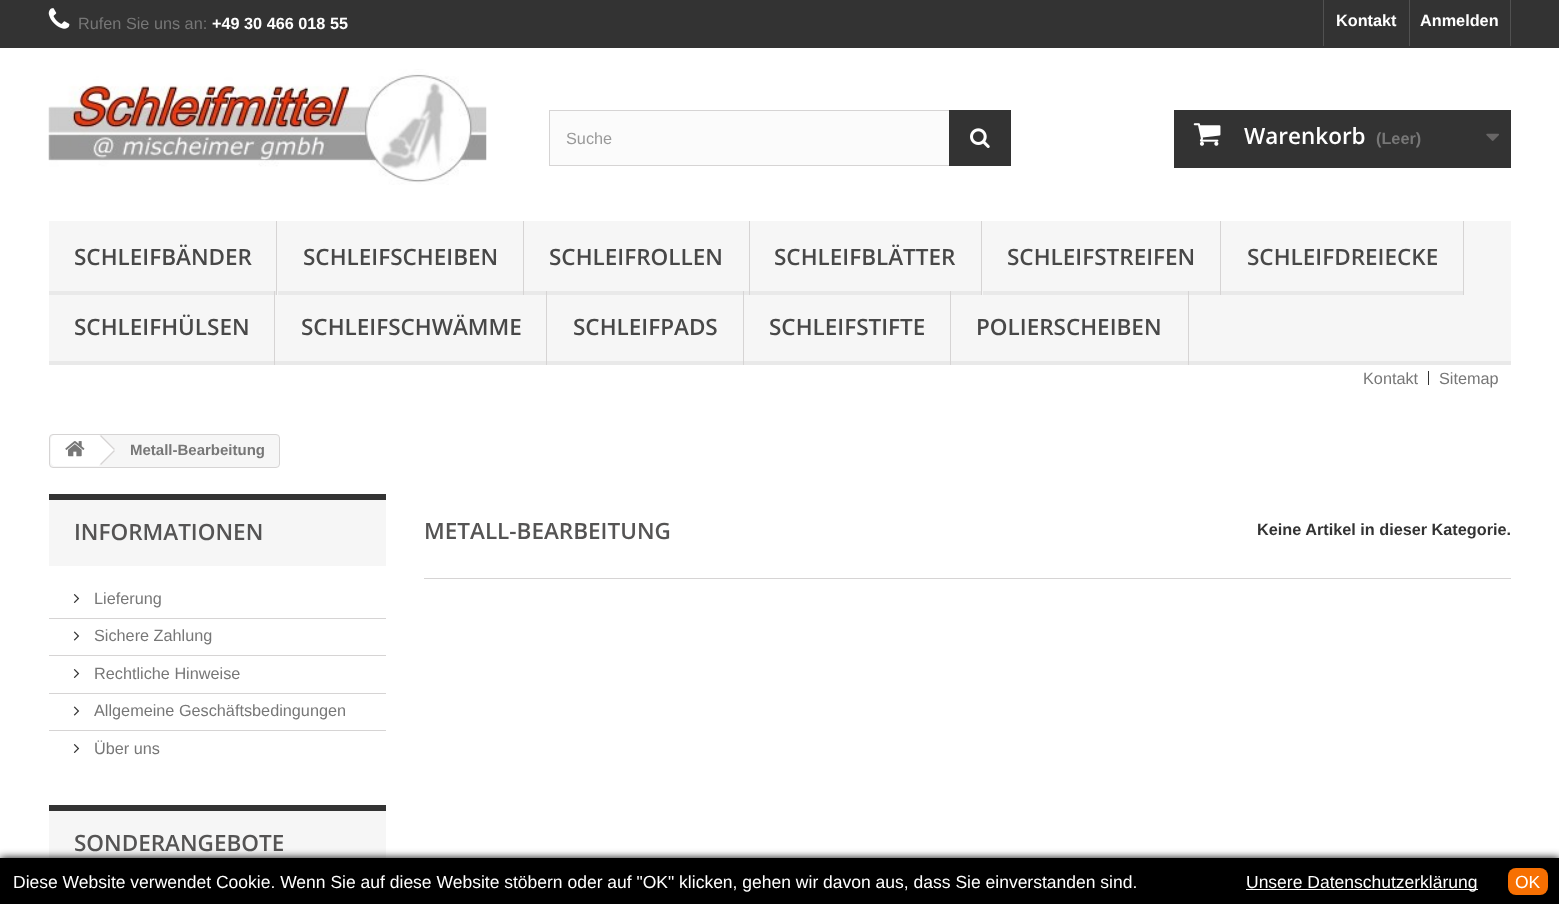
<svg xmlns="http://www.w3.org/2000/svg" width="1559" height="904">
	<rect width="100%" height="100%" fill="#FFFFFF" />
	<rect x="0" y="0" width="1559" height="48" fill="#333333" />
	<image x="48" y="8" width="22" height="21" href="assets/img1.png" />
	<text x="78" y="29" font-family="Liberation Sans" font-size="16.25" fill="#777777">Rufen Sie uns an:</text>
	<text x="212" y="29" font-family="Liberation Sans" font-size="16.25" font-weight="700" fill="#FFFFFF">+49 30 466 018 55</text>
	<rect x="1323" y="0" width="1" height="46" fill="#515151" />
	<text x="1336" y="26" font-family="Liberation Sans" font-size="16.25" font-weight="700" fill="#FFFFFF">Kontakt</text>
	<rect x="1510" y="0" width="1" height="46" fill="#515151" />
	<rect x="1409" y="0" width="1" height="46" fill="#515151" />
	<text x="1420" y="26" font-family="Liberation Sans" font-size="16.25" font-weight="700" fill="#FFFFFF">Anmelden</text>
	<image x="48" y="69" width="439" height="116" href="assets/img2.png" />
	<rect x="550" y="111" width="399" height="54" fill="#FBFBFB" />
	<rect x="549.5" y="110.5" width="461" height="55" fill="none" stroke="#D6D4D4" />
	<text x="566" y="144" font-family="Liberation Sans" font-size="16.25" fill="#999999">Suche</text>
	<rect x="949" y="110" width="62" height="56" fill="#333333" />
	<image x="970" y="128" width="20" height="20" href="assets/img3.png" />
	<rect x="1174" y="110" width="337" height="58" fill="#333333" />
	<image x="1193" y="123" width="28" height="23" href="assets/img4.png" />
	<text x="1244" y="144" font-family="Open Sans" font-size="22.5" font-weight="600" fill="#FFFFFF">Warenkorb</text>
	<text x="1376" y="144" font-family="Liberation Sans" font-size="16.25" font-weight="700" fill="#777777">(Leer)</text>
	<image x="1486" y="133" width="13" height="8" href="assets/img5.png" />
	<rect x="49" y="221" width="1462" height="140" fill="#F6F6F6" />
	<rect x="49" y="361" width="1462" height="4" fill="#E9E9E9" />
	<rect x="276" y="221" width="1" height="74" fill="#D6D4D4" />
	<rect x="49" y="291" width="227" height="4" fill="#E9E9E9" />
	<text x="74" y="265" font-family="Open Sans" font-size="22.5" font-weight="600" fill="#484848">SCHLEIFBÄNDER</text>
	<rect x="523" y="221" width="1" height="74" fill="#D6D4D4" />
	<rect x="278" y="291" width="245" height="4" fill="#E9E9E9" />
	<text x="303" y="265" font-family="Open Sans" font-size="22.5" font-weight="600" fill="#484848">SCHLEIFSCHEIBEN</text>
	<rect x="749" y="221" width="1" height="74" fill="#D6D4D4" />
	<rect x="524" y="291" width="225" height="4" fill="#E9E9E9" />
	<text x="549" y="265" font-family="Open Sans" font-size="22.5" font-weight="600" fill="#484848">SCHLEIFROLLEN</text>
	<rect x="981" y="221" width="1" height="74" fill="#D6D4D4" />
	<rect x="750" y="291" width="231" height="4" fill="#E9E9E9" />
	<text x="774" y="265" font-family="Open Sans" font-size="22.5" font-weight="600" fill="#484848">SCHLEIFBLÄTTER</text>
	<rect x="1220" y="221" width="1" height="74" fill="#D6D4D4" />
	<rect x="983" y="291" width="237" height="4" fill="#E9E9E9" />
	<text x="1007" y="265" font-family="Open Sans" font-size="22.5" font-weight="600" fill="#484848">SCHLEIFSTREIFEN</text>
	<rect x="1463" y="221" width="1" height="74" fill="#D6D4D4" />
	<rect x="1221" y="291" width="242" height="4" fill="#E9E9E9" />
	<text x="1247" y="265" font-family="Open Sans" font-size="22.5" font-weight="600" fill="#484848">SCHLEIFDREIECKE</text>
	<rect x="274" y="291" width="1" height="74" fill="#D6D4D4" />
	<text x="74" y="335" font-family="Open Sans" font-size="22.5" font-weight="600" fill="#484848">SCHLEIFHÜLSEN</text>
	<rect x="546" y="291" width="1" height="74" fill="#D6D4D4" />
	<text x="301" y="335" font-family="Open Sans" font-size="22.5" font-weight="600" fill="#484848">SCHLEIFSCHWÄMME</text>
	<rect x="743" y="291" width="1" height="74" fill="#D6D4D4" />
	<text x="573" y="335" font-family="Open Sans" font-size="22.5" font-weight="600" fill="#484848">SCHLEIFPADS</text>
	<rect x="950" y="291" width="1" height="74" fill="#D6D4D4" />
	<text x="769" y="335" font-family="Open Sans" font-size="22.5" font-weight="600" fill="#484848">SCHLEIFSTIFTE</text>
	<rect x="1188" y="291" width="1" height="74" fill="#D6D4D4" />
	<text x="976" y="335" font-family="Open Sans" font-size="22.5" font-weight="600" fill="#484848">POLIERSCHEIBEN</text>
	<text x="1363" y="384" font-family="Liberation Sans" font-size="16.25" fill="#777777">Kontakt</text>
	<rect x="1428" y="371" width="1" height="14" fill="#333333" />
	<text x="1439" y="384" font-family="Liberation Sans" font-size="16.25" fill="#777777">Sitemap</text>
	<rect x="49.5" y="434.5" width="230" height="33" rx="3.5" fill="#F6F6F6" stroke="#D6D4D4" />
	<path d="M55 435H99V466H55C53 466 51 464 51 462V439C51 437 53 435 55 435Z" fill="#FFFFFF" />
	<image x="65" y="441" width="20" height="16" href="assets/img6.png" />
	<path d="M102 436L114 448C115 449 115 451 114 452L102 464C101 465 99 465 98 464L86 452C85 451 85 449 86 448L98 436C99 435 101 435 102 436Z" fill="#FFFFFF" />
	<path d="M101 435L115 449L114 450L100 436ZM114 450L115 451L101 465L100 464Z" fill="#D6D4D4" />
	<text x="130" y="455" font-family="Liberation Sans" font-size="15" font-weight="700" fill="#777777">Metall-Bearbeitung</text>
	<rect x="49" y="500" width="337" height="66" fill="#F6F6F6" />
	<rect x="49" y="494" width="337" height="6" fill="#333333" />
	<text x="74" y="540" font-family="Open Sans" font-size="22.5" font-weight="600" fill="#555454">INFORMATIONEN</text>
	<image x="73" y="594" width="7" height="9" href="assets/img7.png" />
	<text x="94" y="604" font-family="Liberation Sans" font-size="16.25" fill="#777777">Lieferung</text>
	<rect x="49" y="618" width="337" height="1" fill="#D6D4D4" />
	<image x="73" y="631" width="7" height="10" href="assets/img8.png" />
	<text x="94" y="641" font-family="Liberation Sans" font-size="16.25" fill="#777777">Sichere Zahlung</text>
	<rect x="49" y="655" width="337" height="1" fill="#D6D4D4" />
	<image x="73" y="669" width="7" height="9" href="assets/img7.png" />
	<text x="94" y="679" font-family="Liberation Sans" font-size="16.25" fill="#777777">Rechtliche Hinweise</text>
	<rect x="49" y="693" width="337" height="1" fill="#D6D4D4" />
	<image x="73" y="706" width="7" height="10" href="assets/img8.png" />
	<text x="94" y="716" font-family="Liberation Sans" font-size="16.25" fill="#777777">Allgemeine Geschäftsbedingungen</text>
	<rect x="49" y="730" width="337" height="1" fill="#D6D4D4" />
	<image x="73" y="744" width="7" height="9" href="assets/img7.png" />
	<text x="94" y="754" font-family="Liberation Sans" font-size="16.25" fill="#777777">Über uns</text>
	<rect x="49" y="811" width="337" height="47" fill="#F6F6F6" />
	<rect x="49" y="805" width="337" height="6" fill="#333333" />
	<text x="74" y="851" font-family="Open Sans" font-size="22.5" font-weight="600" fill="#555454">SONDERANGEBOTE</text>
	<rect x="424" y="578" width="1087" height="1" fill="#D6D4D4" />
	<text x="424" y="539" font-family="Open Sans" font-size="22.5" font-weight="600" fill="#555454">METALL-BEARBEITUNG</text>
	<text x="1257" y="535" font-family="Liberation Sans" font-size="16.25" font-weight="700" fill="#333333">Keine Artikel in dieser Kategorie.</text>
	<rect x="0" y="858" width="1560" height="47" fill="#000000" filter="blur(4px)" />
	<rect x="0" y="858" width="1559" height="46" fill="#000000" />
	<text x="13" y="888" font-family="Liberation Sans" font-size="17.5" fill="#FFFFFF">Diese Website verwendet Cookie. Wenn Sie auf diese Website stöbern oder auf "OK" klicken, gehen wir davon aus, dass Sie einverstanden sind.</text>
	<rect x="1246" y="889" width="232" height="1" fill="#FFFFFF" />
	<text x="1246" y="888" font-family="Liberation Sans" font-size="17.5" fill="#FFFFFF">Unsere Datenschutzerklärung</text>
	<rect x="1508" y="868" width="40" height="27" rx="8" fill="#F77002" />
	<text x="1515" y="888" font-family="Liberation Sans" font-size="17.5" fill="#FFFFFF">OK</text>
</svg>
